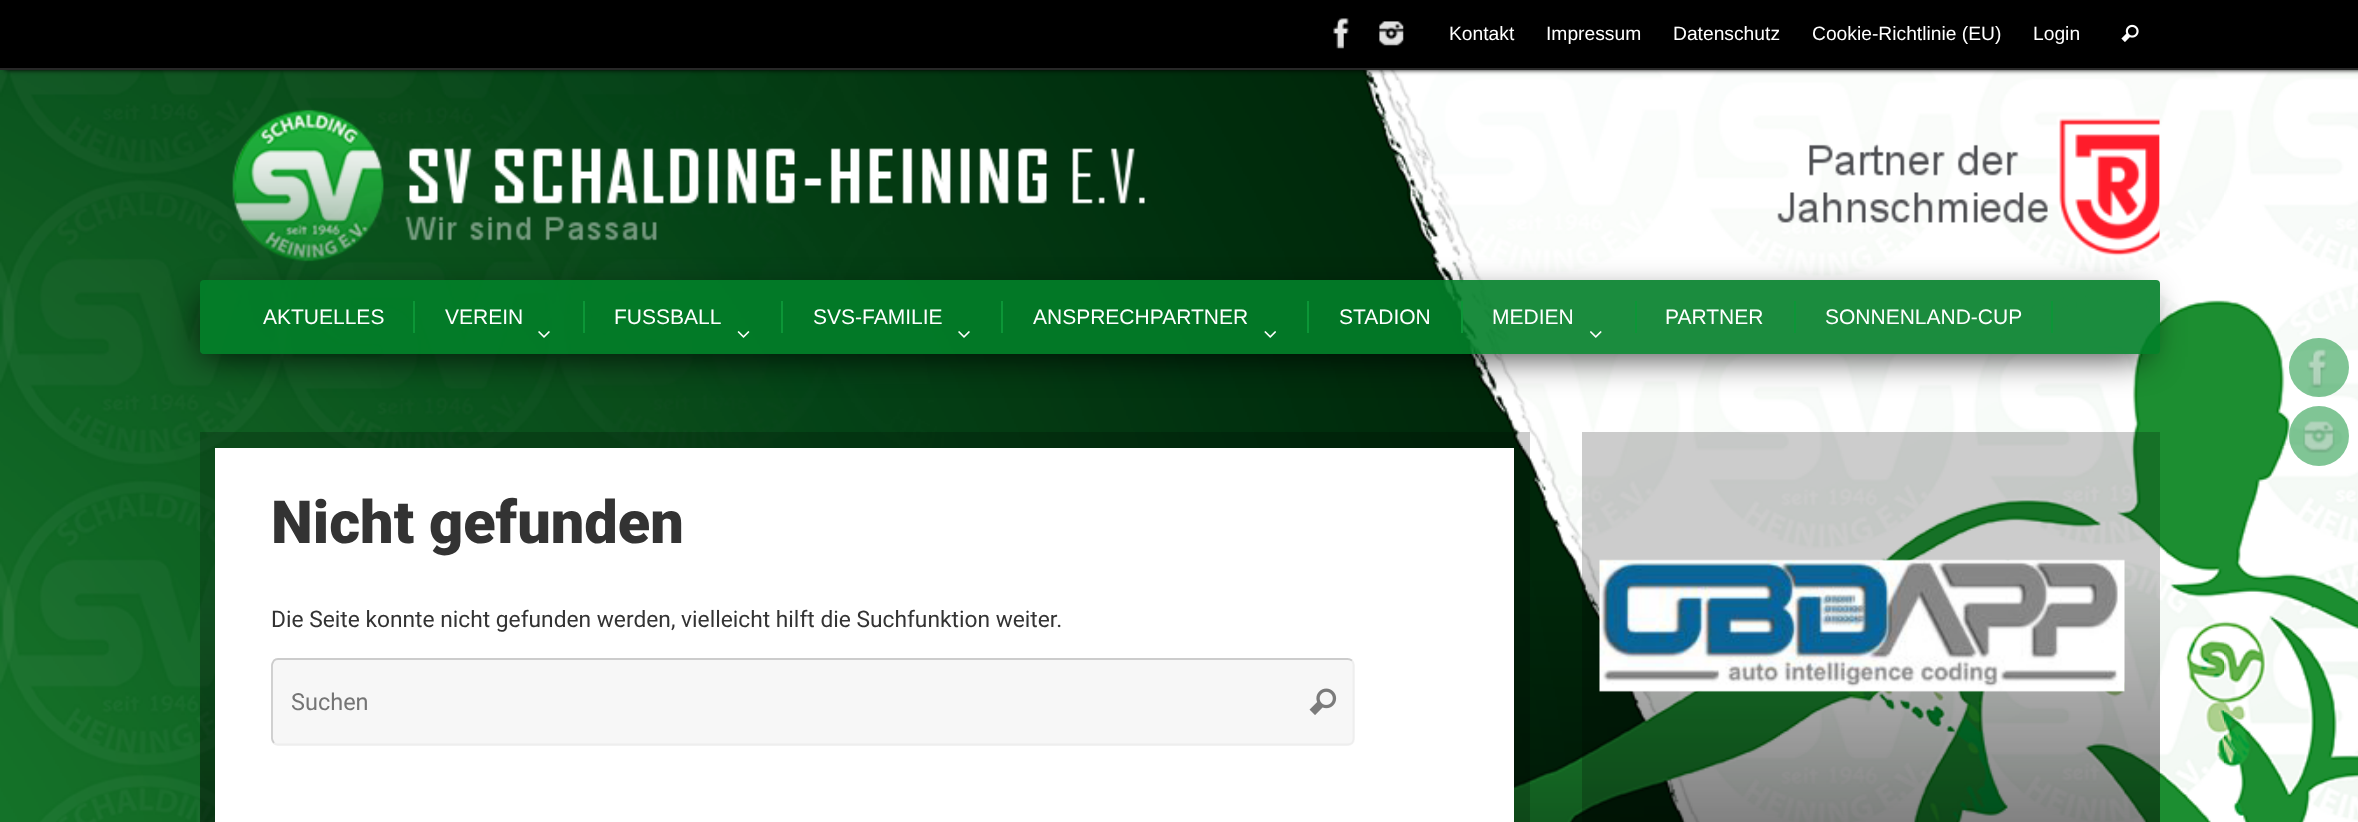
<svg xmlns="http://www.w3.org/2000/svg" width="2358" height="822">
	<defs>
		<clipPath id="clip1"><path d="M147 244H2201V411H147ZM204 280H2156C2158 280 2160 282 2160 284V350C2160 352 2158 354 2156 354H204C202 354 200 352 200 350V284C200 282 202 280 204 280Z" clip-rule="evenodd" /></clipPath>
	</defs>
	<rect width="100%" height="100%" fill="#FFFFFF" />
	<image x="0" y="70" width="2358" height="752" href="assets/img1.png" />
	<rect x="5" y="0" width="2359" height="70" fill="#000000" filter="blur(2.5px)" />
	<rect x="0" y="0" width="2358" height="68" fill="#000000" />
	<rect x="0" y="68" width="2358" height="2" fill="#282828" />
	<image x="1333" y="18" width="16" height="31" href="assets/img2.png" />
	<image x="1379" y="21" width="25" height="25" href="assets/img3.png" />
	<g font-family="Liberation Sans" font-size="19.25" fill="#FFFFFF">
		<text x="1449" y="40">Kontakt</text>
		<text x="1546" y="40">Impressum</text>
		<text x="1673" y="40">Datenschutz</text>
		<text x="1812" y="40">Cookie-Richtlinie (EU)</text>
		<text x="2033" y="40">Login</text>
	</g>
	<image x="2121" y="24" width="18" height="18" href="assets/img4.png" />
	<g clip-path="url(#clip1)">
		<rect x="201" y="298" width="1946" height="59" fill="#000000" fill-opacity="0.75" filter="blur(17.5px)" />
	</g>
	<image x="232" y="109" width="1928" height="153" href="assets/img5.png" />
	<rect x="200" y="280" width="1960" height="74" rx="4" fill="#027F29" fill-opacity="0.9" />
	<rect x="413" y="301" width="2" height="32" fill="#0C9637" />
	<text x="263" y="324" font-family="Liberation Sans" font-size="21" fill="#FFFFFF">AKTUELLES</text>
	<rect x="583" y="301" width="2" height="32" fill="#0C9637" />
	<text x="445" y="324" font-family="Liberation Sans" font-size="21" fill="#FFFFFF">VEREIN</text>
	<image x="538" y="331" width="12" height="7" href="assets/img6.png" />
	<rect x="781" y="301" width="2" height="32" fill="#0C9637" />
	<text x="614" y="324" font-family="Liberation Sans" font-size="21" fill="#FFFFFF">FUSSBALL</text>
	<image x="737" y="331" width="13" height="7" href="assets/img7.png" />
	<rect x="1001" y="301" width="2" height="32" fill="#0C9637" />
	<text x="813" y="324" font-family="Liberation Sans" font-size="21" fill="#FFFFFF">SVS-FAMILIE</text>
	<image x="958" y="331" width="12" height="7" href="assets/img8.png" />
	<rect x="1307" y="301" width="2" height="32" fill="#0C9637" />
	<text x="1033" y="324" font-family="Liberation Sans" font-size="21" fill="#FFFFFF">ANSPRECHPARTNER</text>
	<image x="1264" y="331" width="12" height="7" href="assets/img9.png" />
	<rect x="1461" y="301" width="2" height="32" fill="#0C9637" />
	<text x="1339" y="324" font-family="Liberation Sans" font-size="21" fill="#FFFFFF">STADION</text>
	<rect x="1635" y="301" width="2" height="32" fill="#0C9637" />
	<text x="1492" y="324" font-family="Liberation Sans" font-size="21" fill="#FFFFFF">MEDIEN</text>
	<image x="1590" y="331" width="12" height="7" href="assets/img10.png" />
	<rect x="1794" y="301" width="2" height="32" fill="#0C9637" />
	<text x="1665" y="324" font-family="Liberation Sans" font-size="21" fill="#FFFFFF">PARTNER</text>
	<rect x="2051" y="301" width="2" height="32" fill="#0C9637" />
	<text x="1825" y="324" font-family="Liberation Sans" font-size="21" fill="#FFFFFF">SONNENLAND-CUP</text>
	<rect x="2289" y="338" width="60" height="59" rx="29.5" fill="#018B2C" fill-opacity="0.5" />
	<image x="2307" y="349" width="20" height="39" href="assets/img11.png" />
	<circle cx="2319" cy="436" r="30" fill="#018B2C" fill-opacity="0.5" />
	<image x="2303" y="421" width="32" height="32" href="assets/img12.png" />
	<rect x="200" y="432" width="1330" height="390" fill="#000000" fill-opacity="0.2" />
	<rect x="215" y="448" width="1299" height="374" fill="#FFFFFF" />
	<text x="271" y="543" font-family="Roboto" font-size="59.5" font-weight="900" fill="#333333">Nicht gefunden</text>
	<text x="271" y="627" font-family="Roboto" font-size="22.75" fill="#333333">Die Seite konnte nicht gefunden werden, vielleicht hilft die Suchfunktion weiter.</text>
	<rect x="271" y="658" width="1084" height="88" rx="7" fill="#F7F7F7" />
	<path d="M1352 660.5C1353 662 1353.5 663.5 1353.5 665V738.5C1353.5 740 1353 741.5 1352 743C1350.5 744 1349 744.5 1347.5 744.5H278C276.5 744.5 275 744 274 743" fill="none" stroke="#EEEEEE" stroke-width="1.8" />
	<path d="M274 743C273 741.5 272 740 272 738.5V665C272 663.5 273 662 274 660.5C275 659.5 276.5 659 278 659H1347.5C1349 659 1350.5 659.5 1352 660.5" fill="none" stroke="#CCCCCC" stroke-width="1.8" />
	<text x="291" y="710" font-family="Roboto" font-size="23.5" fill="#757575">Suchen</text>
	<image x="1309" y="688" width="28" height="27" href="assets/img13.png" />
	<rect x="1582" y="432" width="578" height="390" fill="#000000" fill-opacity="0.2" />
	<image x="1599" y="559" width="526" height="133" href="assets/img14.png" />
</svg>
